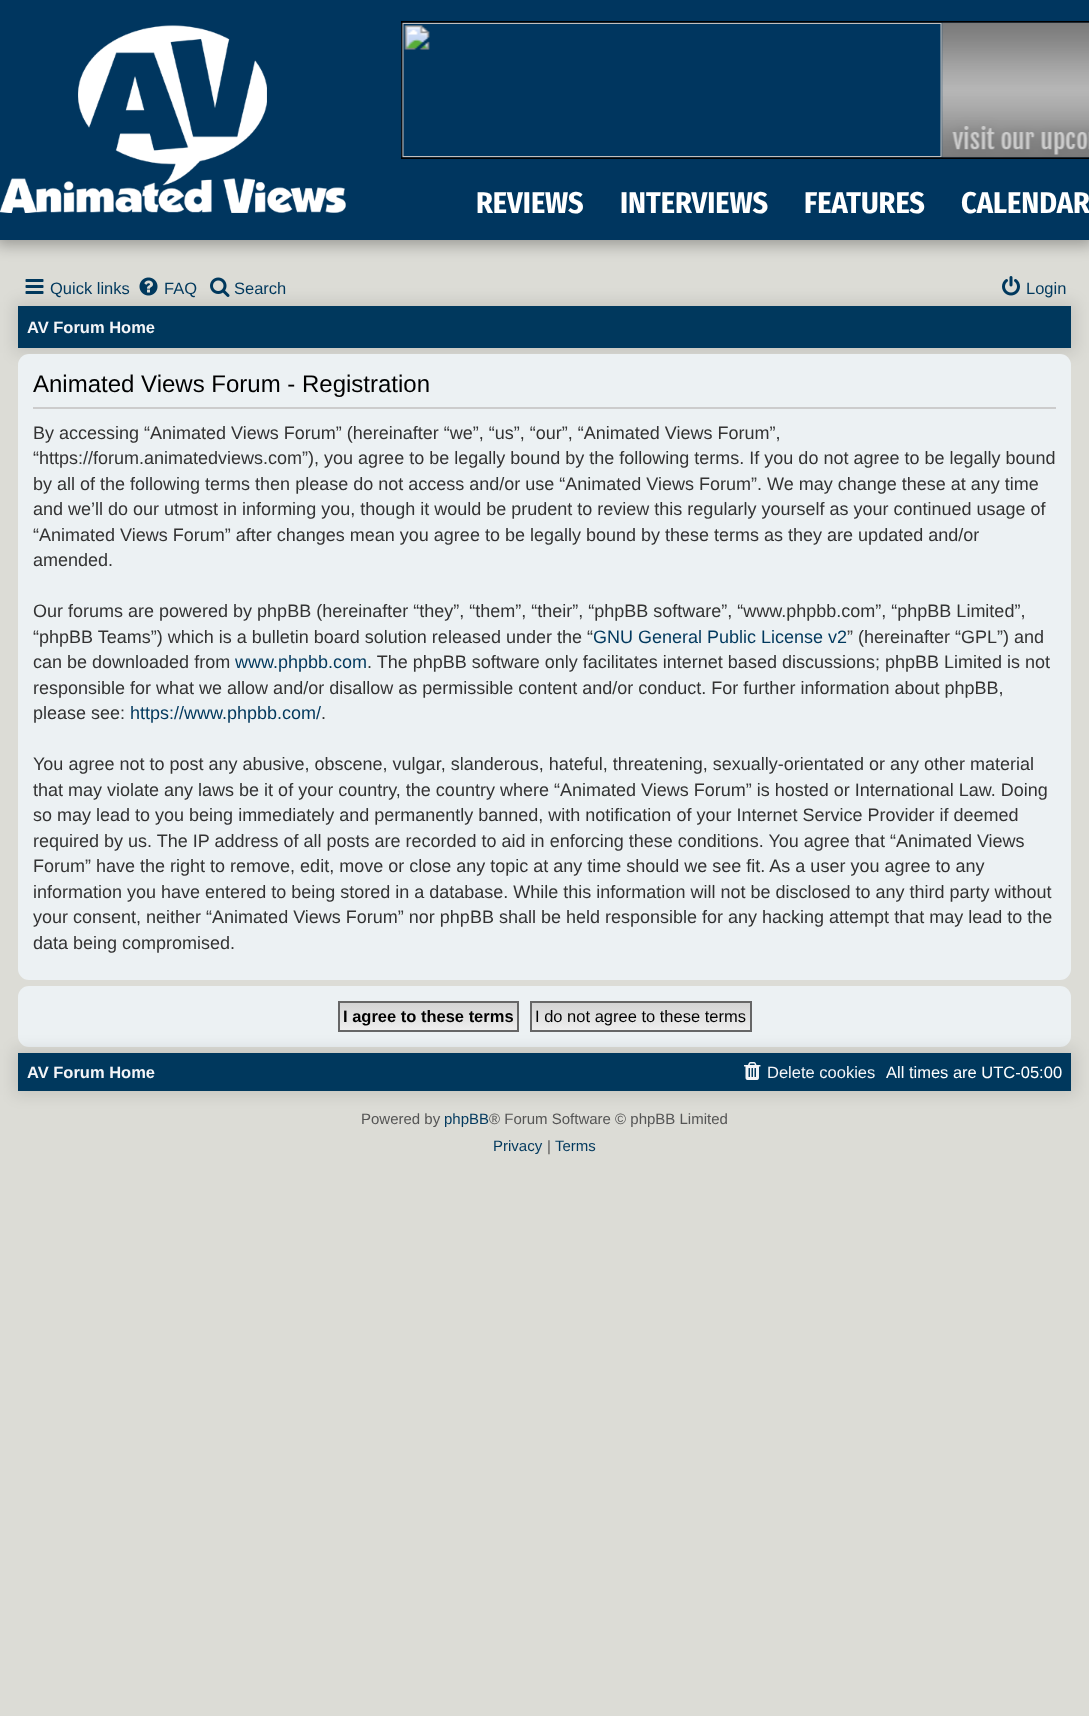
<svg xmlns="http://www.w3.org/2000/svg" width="1089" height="1716">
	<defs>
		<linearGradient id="g1" gradientUnits="userSpaceOnUse" x1="428" y1="1002" x2="428" y2="1031"><stop offset="0" stop-color="#D2D2D2" /><stop offset="1" stop-color="#EFEFEF" /></linearGradient>
		<linearGradient id="g2" gradientUnits="userSpaceOnUse" x1="641" y1="1002" x2="641" y2="1031"><stop offset="0" stop-color="#D2D2D2" /><stop offset="1" stop-color="#EFEFEF" /></linearGradient>
	</defs>
	<rect width="100%" height="100%" fill="#DCDCD6" />
	<rect x="-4" y="-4" width="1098" height="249" fill="#000000" fill-opacity="0.3" filter="blur(7.5px)" />
	<rect x="0" y="0" width="1089" height="240" fill="#00365F" />
	<image x="0" y="25" width="346" height="188" href="assets/img1.png" />
	<rect x="402" y="22" width="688" height="136" fill="none" stroke="#000000" stroke-width="2" />
	<image x="401" y="22" width="688" height="136" href="assets/img2.png" />
	<g font-family="Fira Sans Condensed" font-size="30" font-weight="700" fill="#FFFFFF">
		<text x="476" y="213">REVIEWS</text>
		<text x="620" y="213">INTERVIEWS</text>
		<text x="804" y="213">FEATURES</text>
		<text x="961" y="213">CALENDAR</text>
	</g>
	<rect x="14" y="302" width="1062" height="51" fill="#000000" fill-opacity="0.1" filter="blur(7.5px)" />
	<image x="25" y="279" width="19" height="15" href="assets/img3.png" />
	<text x="50" y="294" font-family="Liberation Sans" font-size="16.5" fill="#00385D">Quick links</text>
	<image x="139" y="277" width="19" height="19" href="assets/img4.png" />
	<text x="164" y="294" font-family="Liberation Sans" font-size="16.5" fill="#00385D">FAQ</text>
	<image x="210" y="277" width="20" height="20" href="assets/img5.png" />
	<text x="234" y="294" font-family="Liberation Sans" font-size="16.5" fill="#00385D">Search</text>
	<image x="1002" y="276" width="18" height="20" href="assets/img6.png" />
	<text x="1026" y="294" font-family="Liberation Sans" font-size="16.5" fill="#00385D">Login</text>
	<rect x="18" y="306" width="1053" height="42" fill="#00385D" />
	<text x="27" y="333" font-family="Liberation Sans" font-size="16.5" font-weight="700" fill="#F4F5F8">AV Forum Home</text>
	<rect x="18" y="354" width="1053" height="626" rx="11" fill="#ECF1F3" />
	<rect x="33" y="407" width="1023" height="2" fill="#CCCCCC" />
	<text x="33" y="392" font-family="Liberation Sans" font-size="24" fill="#000000">Animated Views Forum - Registration</text>
	<g font-family="Liberation Sans" font-size="18" fill="#333333">
		<text x="33" y="439">By accessing “Animated Views Forum” (hereinafter “we”, “us”, “our”, “Animated Views Forum”,</text>
		<text x="33" y="464">“https://forum.animatedviews.com”), you agree to be legally bound by the following terms. If you do not agree to be legally bound</text>
		<text x="33" y="490">by all of the following terms then please do not access and/or use “Animated Views Forum”. We may change these at any time</text>
		<text x="33" y="515">and we’ll do our utmost in informing you, though it would be prudent to review this regularly yourself as your continued usage of</text>
		<text x="33" y="541">“Animated Views Forum” after changes mean you agree to be legally bound by these terms as they are updated and/or</text>
		<text x="33" y="566">amended.</text>
		<text x="33" y="617">Our forums are powered by phpBB (hereinafter “they”, “them”, “their”, “phpBB software”, “www.phpbb.com”, “phpBB Limited”,</text>
		<text x="33" y="643">“phpBB Teams”) which is a bulletin board solution released under the “</text>
	</g>
	<text x="593" y="643" font-family="Liberation Sans" font-size="18" fill="#00385D">GNU General Public License v2</text>
	<g font-family="Liberation Sans" font-size="18" fill="#333333">
		<text x="847" y="643">” (hereinafter “GPL”) and</text>
		<text x="33" y="668">can be downloaded from</text>
	</g>
	<text x="235" y="668" font-family="Liberation Sans" font-size="18" fill="#00385D">www.phpbb.com</text>
	<g font-family="Liberation Sans" font-size="18" fill="#333333">
		<text x="367" y="668">. The phpBB software only facilitates internet based discussions; phpBB Limited is not</text>
		<text x="33" y="694">responsible for what we allow and/or disallow as permissible content and/or conduct. For further information about phpBB,</text>
		<text x="33" y="719">please see:</text>
	</g>
	<text x="130" y="719" font-family="Liberation Sans" font-size="18" fill="#00385D">https://www.phpbb.com/</text>
	<g font-family="Liberation Sans" font-size="18" fill="#333333">
		<text x="321" y="719">.</text>
		<text x="33" y="770">You agree not to post any abusive, obscene, vulgar, slanderous, hateful, threatening, sexually-orientated or any other material</text>
		<text x="33" y="796">that may violate any laws be it of your country, the country where “Animated Views Forum” is hosted or International Law. Doing</text>
		<text x="33" y="821">so may lead to you being immediately and permanently banned, with notification of your Internet Service Provider if deemed</text>
		<text x="33" y="847">required by us. The IP address of all posts are recorded to aid in enforcing these conditions. You agree that “Animated Views</text>
		<text x="33" y="872">Forum” have the right to remove, edit, move or close any topic at any time should we see fit. As a user you agree to any</text>
		<text x="33" y="898">information you have entered to being stored in a database. While this information will not be disclosed to any third party without</text>
		<text x="33" y="923">your consent, neither “Animated Views Forum” nor phpBB shall be held responsible for any hacking attempt that may lead to the</text>
		<text x="33" y="949">data being compromised.</text>
	</g>
	<rect x="18" y="986" width="1053" height="61" rx="11" fill="#ECF1F3" />
	<rect x="14" y="1049" width="1062" height="46" fill="#000000" fill-opacity="0.1" filter="blur(7.5px)" />
	<rect x="340" y="1003" width="177" height="27" fill="url(#g1)" />
	<rect x="339" y="1002" width="179" height="29" fill="none" stroke="#666666" stroke-width="2" />
	<text x="343" y="1022" font-family="Liberation Sans" font-size="16.5" font-weight="700" fill="#000000">I agree to these terms</text>
	<rect x="532" y="1003" width="218" height="27" fill="url(#g2)" />
	<rect x="531" y="1002" width="220" height="29" fill="none" stroke="#666666" stroke-width="2" />
	<text x="535" y="1022" font-family="Liberation Sans" font-size="16.5" fill="#000000">I do not agree to these terms</text>
	<rect x="18" y="1053" width="1053" height="38" fill="#00385D" />
	<text x="27" y="1078" font-family="Liberation Sans" font-size="16.5" font-weight="700" fill="#F4F5F8">AV Forum Home</text>
	<image x="744" y="1062" width="17" height="18" href="assets/img7.png" />
	<text x="767" y="1078" font-family="Liberation Sans" font-size="16.5" fill="#F4F5F8">Delete cookies</text>
	<text x="886" y="1078" font-family="Liberation Sans" font-size="16.5" fill="#FFFFFF">All times are UTC-05:00</text>
	<text x="361" y="1124" font-family="Liberation Sans" font-size="15" fill="#555555">Powered by</text>
	<text x="444" y="1124" font-family="Liberation Sans" font-size="15" fill="#00385D">phpBB</text>
	<text x="489" y="1124" font-family="Liberation Sans" font-size="15" fill="#555555">® Forum Software © phpBB Limited</text>
	<text x="493" y="1151" font-family="Liberation Sans" font-size="15" fill="#00385D">Privacy</text>
	<text x="547" y="1151" font-family="Liberation Sans" font-size="15" fill="#555555">|</text>
	<text x="555" y="1151" font-family="Liberation Sans" font-size="15" fill="#00385D">Terms</text>
</svg>
